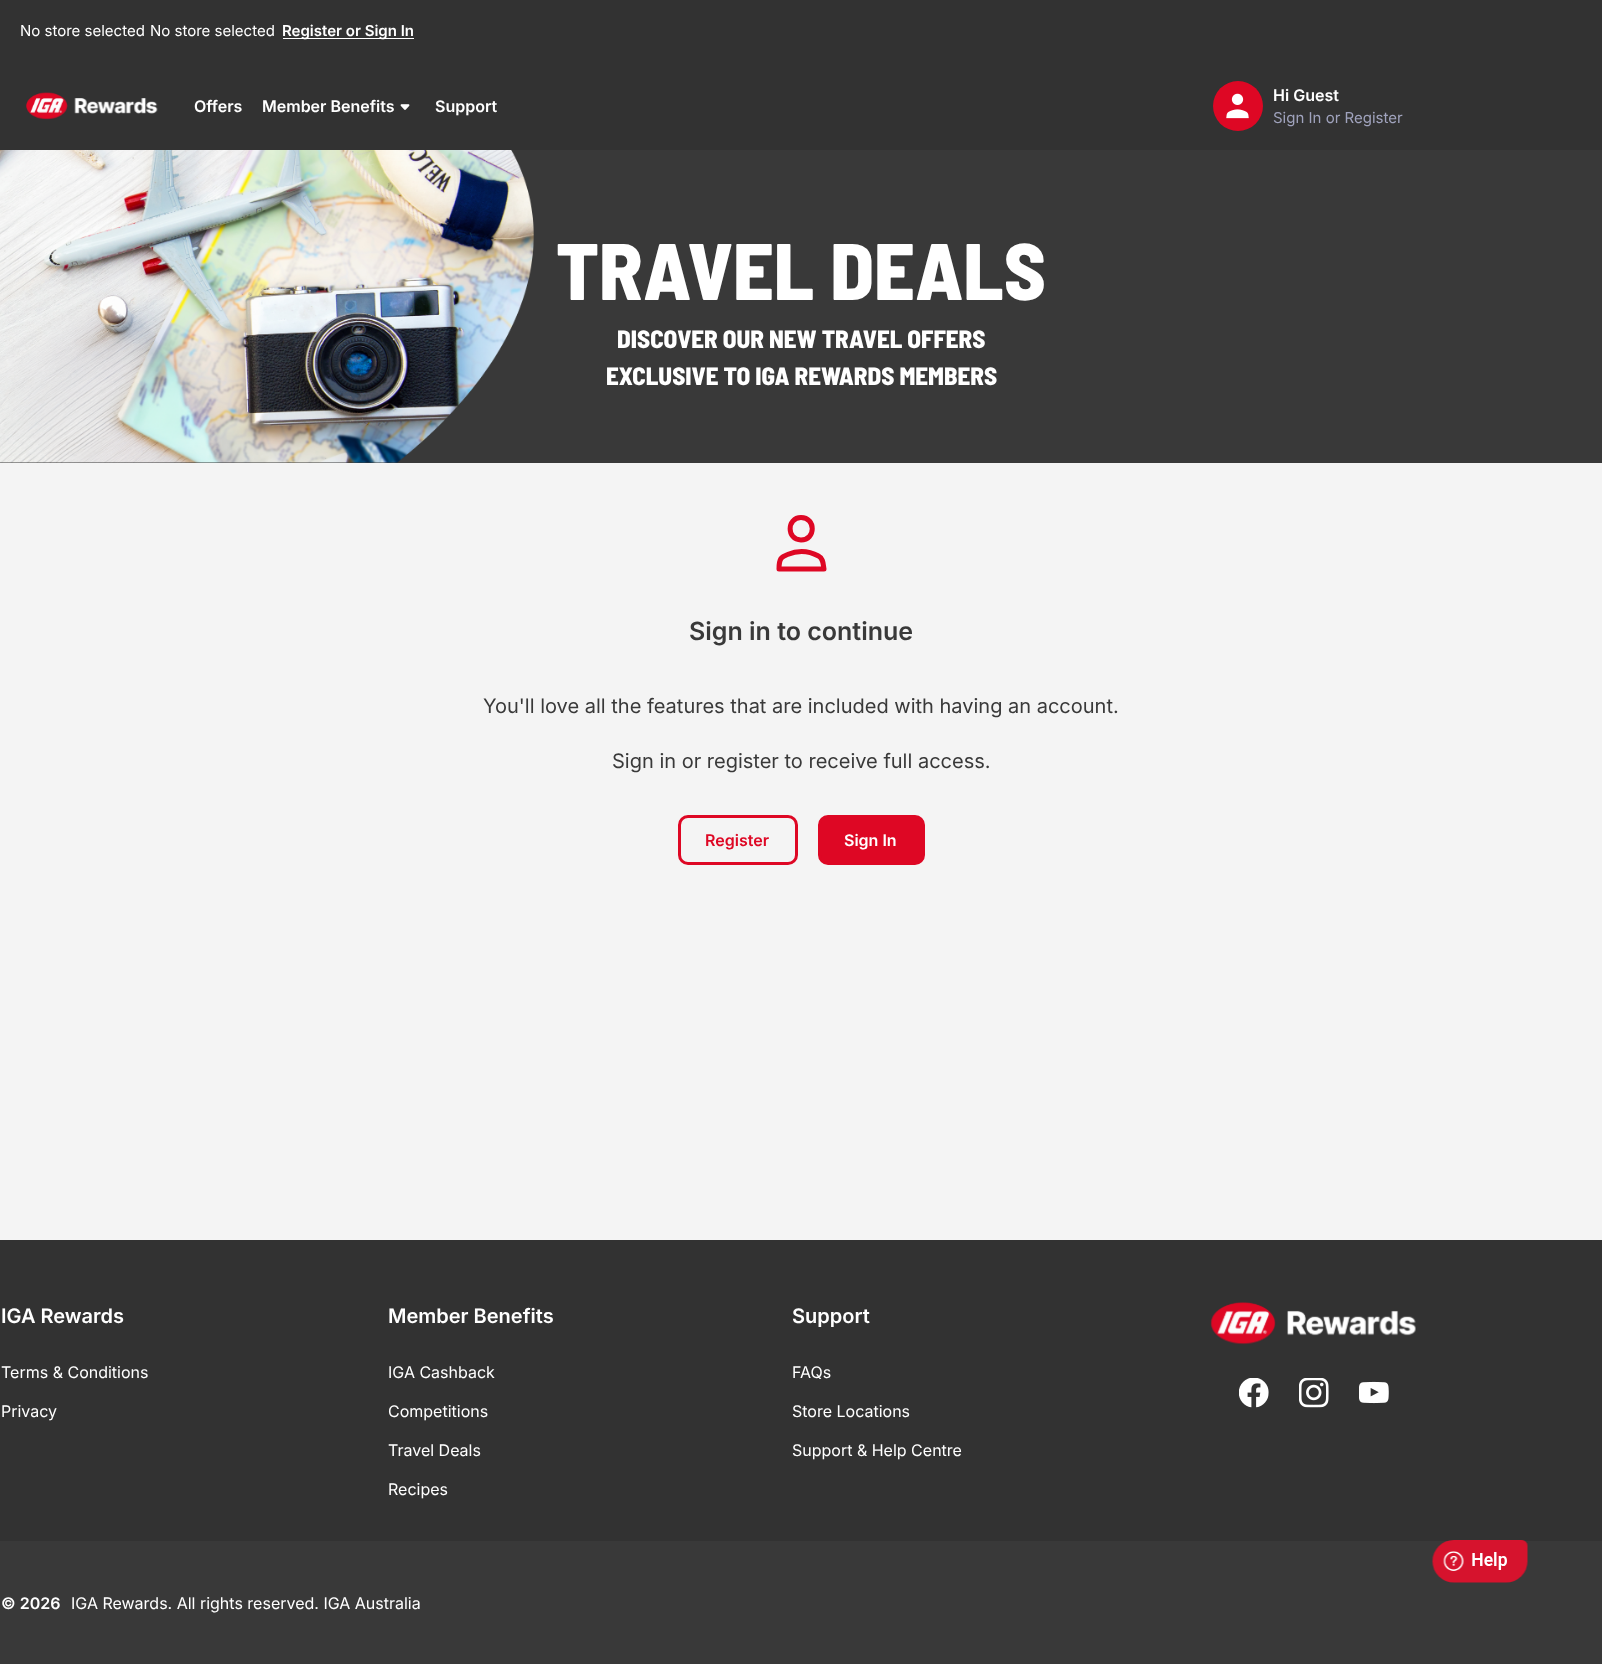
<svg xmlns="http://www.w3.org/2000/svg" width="1602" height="1664">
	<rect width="100%" height="100%" fill="#F4F4F4" />
	<rect x="0" y="0" width="1602" height="150" fill="#323232" />
	<g font-family="Inter" font-size="15" fill="#FFFFFF">
		<text x="20" y="36">No store selected</text>
		<text x="150" y="36">No store selected</text>
	</g>
	<rect x="283" y="38" width="131" height="1" fill="#FFFFFF" />
	<text x="282" y="36" font-family="Inter" font-size="15" font-weight="600" fill="#FFFFFF">Register or Sign In</text>
	<image x="26" y="92" width="132" height="28" href="assets/img1.png" />
	<g font-family="Inter" font-size="16" font-weight="600" fill="#FFFFFF">
		<text x="194" y="112">Offers</text>
		<text x="262" y="112">Member Benefits</text>
	</g>
	<image x="400" y="104" width="10" height="6" href="assets/img2.png" />
	<text x="435" y="112" font-family="Inter" font-size="16" font-weight="600" fill="#FFFFFF">Support</text>
	<circle cx="1238" cy="106" r="25" fill="#DE0724" />
	<image x="1226" y="93" width="23" height="26" href="assets/img3.png" />
	<text x="1273" y="101" font-family="Inter" font-size="16" font-weight="600" fill="#FFFFFF">Hi Guest</text>
	<text x="1273" y="123" font-family="Inter" font-size="15" fill="#A0A3BD">Sign In or Register</text>
	<rect x="0" y="150" width="1602" height="313" fill="#393939" />
	<image x="0" y="150" width="534" height="313" href="assets/img4.png" />
	<text x="556" y="300" font-family="Barlow Semi Condensed" font-size="80" font-weight="800" fill="#FFFFFF">TRAVEL DEALS</text>
	<g font-family="Barlow Semi Condensed" font-size="25" font-weight="800" fill="#FFFFFF">
		<text x="617" y="348">DISCOVER OUR NEW TRAVEL OFFERS</text>
		<text x="606" y="385">EXCLUSIVE TO IGA REWARDS MEMBERS</text>
	</g>
	<path d="M818.5 556C808.5 550.5 798 550 787.5 554.5C785 555.5 782.5 556.5 781 558.5C779 561.5 779 565.5 779 569H824C823 564 823.5 558.5 818.5 556ZM801 540C816 540 816 517.5 801 517.5C786.5 517.5 786.5 540 801 540Z" fill="none" stroke="#DE0724" stroke-width="5" stroke-linecap="round" stroke-linejoin="round" />
	<text x="689" y="640" font-family="Inter" font-size="25" font-weight="600" fill="#393939">Sign in to continue</text>
	<g font-family="Inter" font-size="20" fill="#393939">
		<text x="483" y="713">You'll love all the features that are included with having an account.</text>
		<text x="612" y="768">Sign in or register to receive full access.</text>
	</g>
	<rect x="679.5" y="816.5" width="117" height="47" rx="8.5" fill="none" stroke="#DE0724" stroke-width="3" />
	<text x="705" y="846" font-family="Inter" font-size="16" font-weight="600" fill="#DE0724">Register</text>
	<rect x="819.5" y="816.5" width="104" height="47" rx="8.5" fill="#DE0724" stroke="#DE0724" stroke-width="3" />
	<text x="844" y="846" font-family="Inter" font-size="16" font-weight="600" fill="#FFFFFF">Sign In</text>
	<rect x="0" y="1240" width="1602" height="301" fill="#323232" />
	<text x="1" y="1323" font-family="Inter" font-size="20" font-weight="600" fill="#FFFFFF">IGA Rewards</text>
	<g font-family="Inter" font-size="16" fill="#FFFFFF">
		<text x="1" y="1378">Terms &amp; Conditions</text>
		<text x="1" y="1417">Privacy</text>
	</g>
	<text x="388" y="1323" font-family="Inter" font-size="20" font-weight="600" fill="#FFFFFF">Member Benefits</text>
	<g font-family="Inter" font-size="16" fill="#FFFFFF">
		<text x="388" y="1378">IGA Cashback</text>
		<text x="388" y="1417">Competitions</text>
		<text x="388" y="1456">Travel Deals</text>
		<text x="388" y="1495">Recipes</text>
	</g>
	<text x="792" y="1323" font-family="Inter" font-size="20" font-weight="600" fill="#FFFFFF">Support</text>
	<g font-family="Inter" font-size="16" fill="#FFFFFF">
		<text x="792" y="1378">FAQs</text>
		<text x="792" y="1417">Store Locations</text>
		<text x="792" y="1456">Support &amp; Help Centre</text>
	</g>
	<image x="1210" y="1302" width="206" height="43" href="assets/img5.png" />
	<image x="1239" y="1378" width="30" height="30" href="assets/img6.png" />
	<image x="1299" y="1378" width="30" height="30" href="assets/img7.png" />
	<image x="1359" y="1381" width="30" height="23" href="assets/img8.png" />
	<rect x="0" y="1541" width="1602" height="123" fill="#393939" />
	<text x="1" y="1609" font-family="Inter" font-size="16" font-weight="600" fill="#FFFFFF">© 2026</text>
	<text x="71" y="1609" font-family="Inter" font-size="16" fill="#FFFFFF">IGA Rewards. All rights reserved. IGA Australia</text>
	<image x="1432" y="1540" width="96" height="43" href="assets/img9.png" />
</svg>
